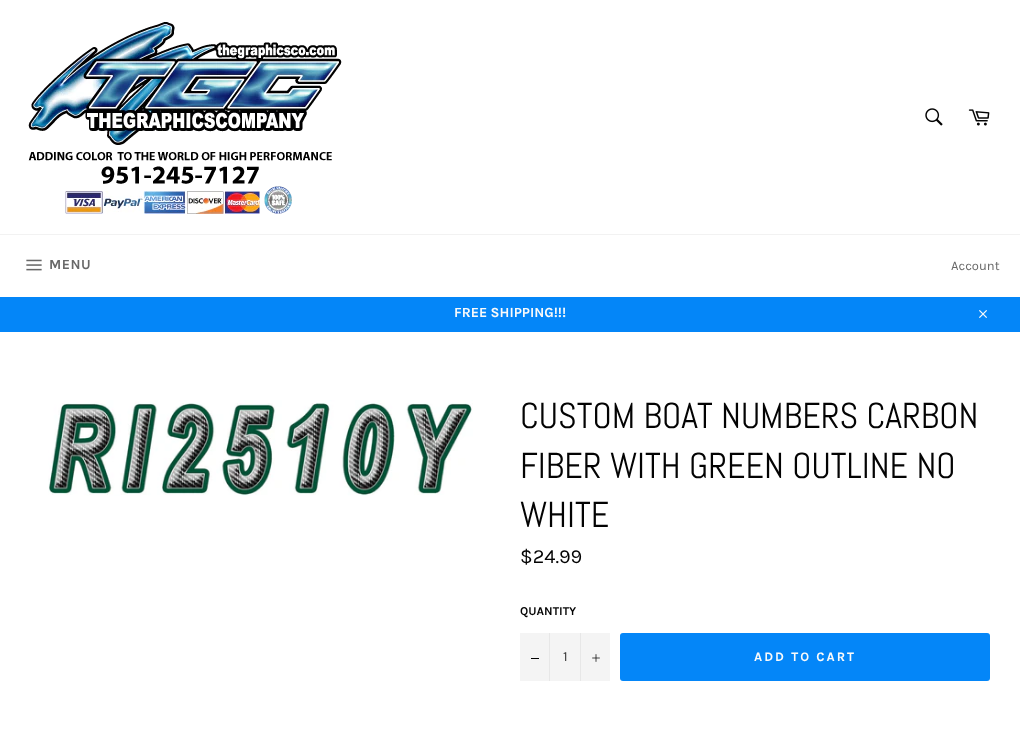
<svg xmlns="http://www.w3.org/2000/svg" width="1020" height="743">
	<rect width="100%" height="100%" fill="#FFFFFF" />
	<image x="28" y="22" width="314" height="192" href="assets/img1.png" />
	<image x="925" y="108" width="18" height="18" href="assets/img2.png" />
	<image x="968" y="109" width="22" height="17" href="assets/img3.png" />
	<rect x="0" y="234" width="1020" height="1" fill="#F2F2F2" />
	<image x="26" y="259" width="16" height="12" href="assets/img4.png" />
	<text x="49" y="269" font-family="Karla" font-size="14" font-weight="700" letter-spacing="0.5" fill="#686868">MENU</text>
	<text x="951" y="270" font-family="Karla" font-size="13" fill="#686868">Account</text>
	<rect x="0" y="297" width="1020" height="35" fill="#0486F8" />
	<text x="454" y="317" font-family="Karla" font-size="14" font-weight="700" fill="#FAFAFA">FREE SHIPPING!!!</text>
	<image x="979" y="310" width="8" height="8" href="assets/img5.png" />
	<image x="48" y="400" width="425" height="96" href="assets/img6.png" />
	<g font-family="Abel" font-size="36" fill="#030303">
		<text x="520" y="428">CUSTOM BOAT NUMBERS CARBON</text>
		<text x="520" y="478">FIBER WITH GREEN OUTLINE NO</text>
		<text x="520" y="527">WHITE</text>
	</g>
	<text x="520" y="563" font-family="Karla" font-size="20" fill="#030303">$24.99</text>
	<text x="520" y="615" font-family="Karla" font-size="12" font-weight="700" fill="#030303">QUANTITY</text>
	<rect x="520" y="633" width="90" height="48" fill="#F4F4F4" />
	<rect x="549" y="633" width="1" height="48" fill="#E7E7E7" />
	<rect x="531" y="658" width="8" height="1" fill="#030303" />
	<text x="563" y="661" font-family="Karla" font-size="14" fill="#333333">1</text>
	<rect x="580" y="633" width="1" height="48" fill="#E7E7E7" />
	<image x="592" y="654" width="8" height="8" href="assets/img7.png" />
	<rect x="620" y="633" width="370" height="48" rx="3" fill="#0486F8" />
	<text x="754" y="661" font-family="Karla" font-size="13" font-weight="700" letter-spacing="2" fill="#FAFAFA">ADD TO CART</text>
</svg>
